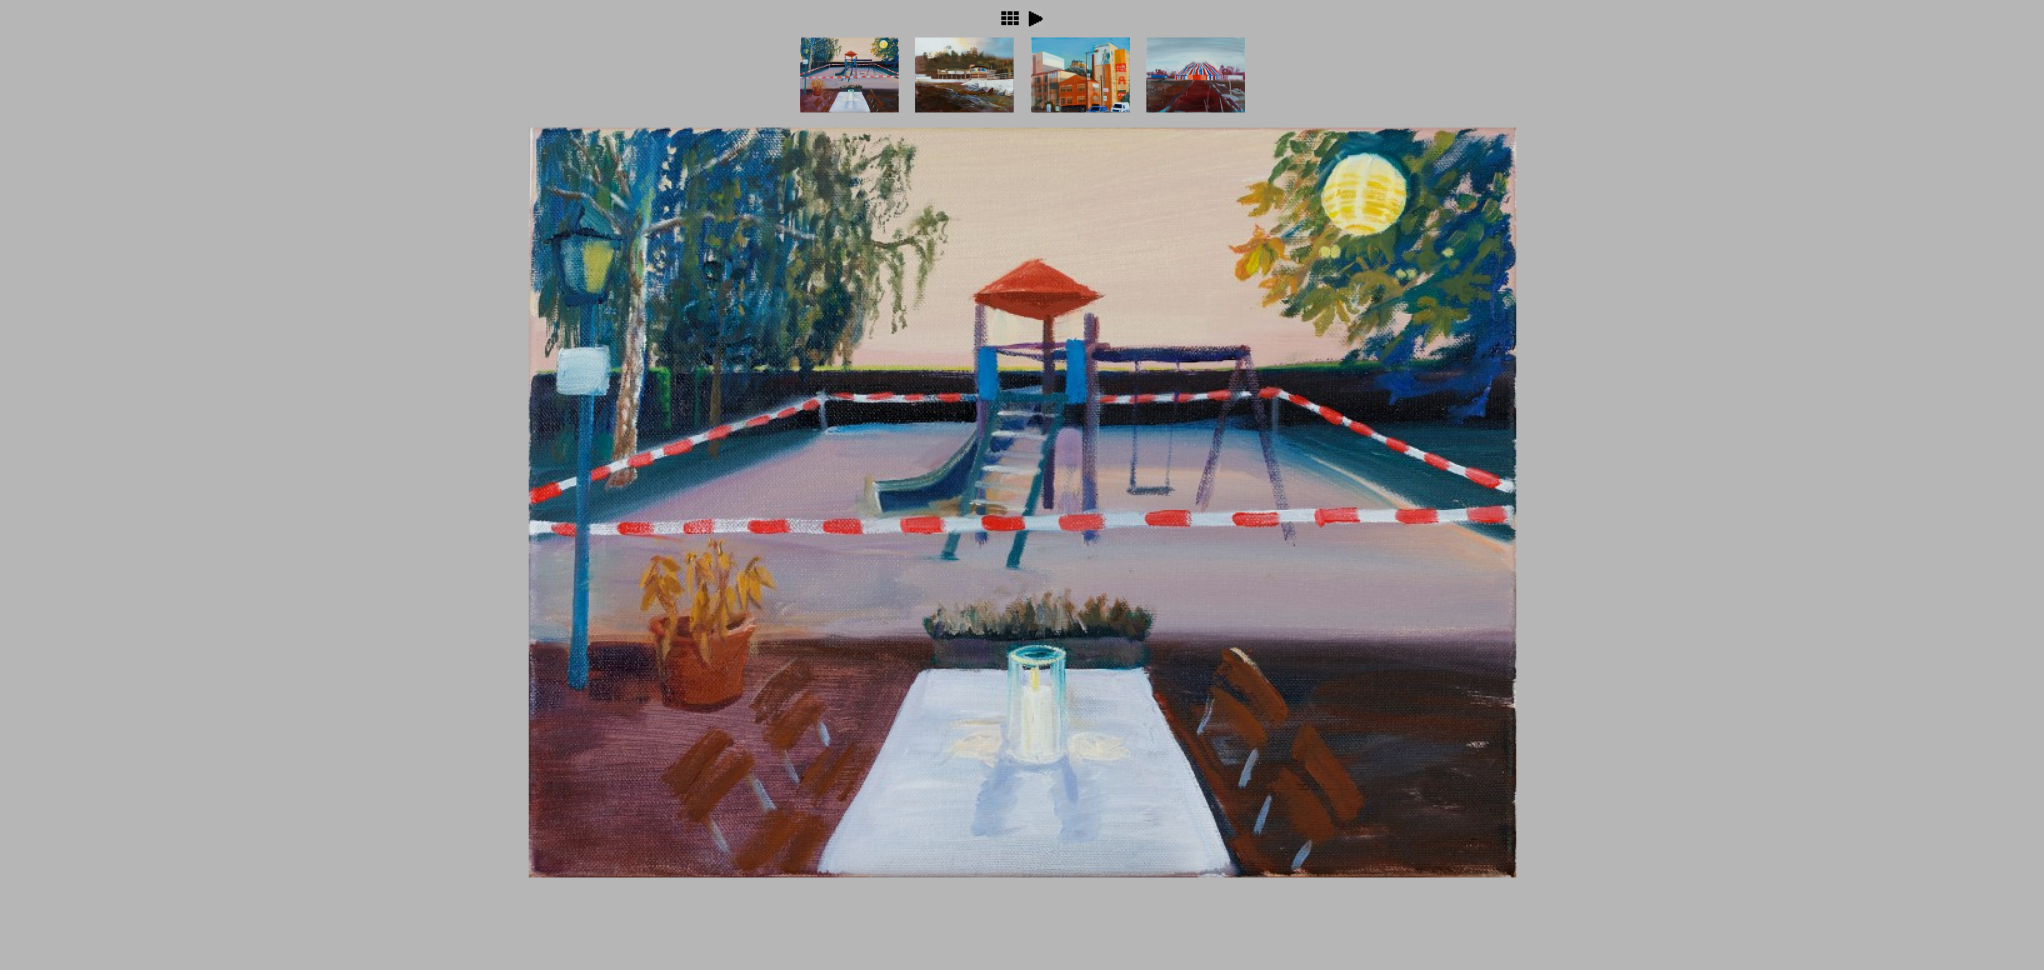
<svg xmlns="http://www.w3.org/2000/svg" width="2044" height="970">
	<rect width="100%" height="100%" fill="#B6B6B6" />
	<image x="1001" y="11" width="18" height="15" href="assets/img1.png" />
	<image x="1028" y="11" width="15" height="16" href="assets/img2.png" />
	<image x="800" y="37" width="99" height="76" href="assets/img3.png" />
	<image x="915" y="37" width="99" height="76" href="assets/img4.png" />
	<image x="1031" y="37" width="99" height="76" href="assets/img5.png" />
	<image x="1146" y="37" width="99" height="76" href="assets/img6.png" />
	<image x="528" y="127" width="989" height="751" href="assets/img7.png" />
</svg>
